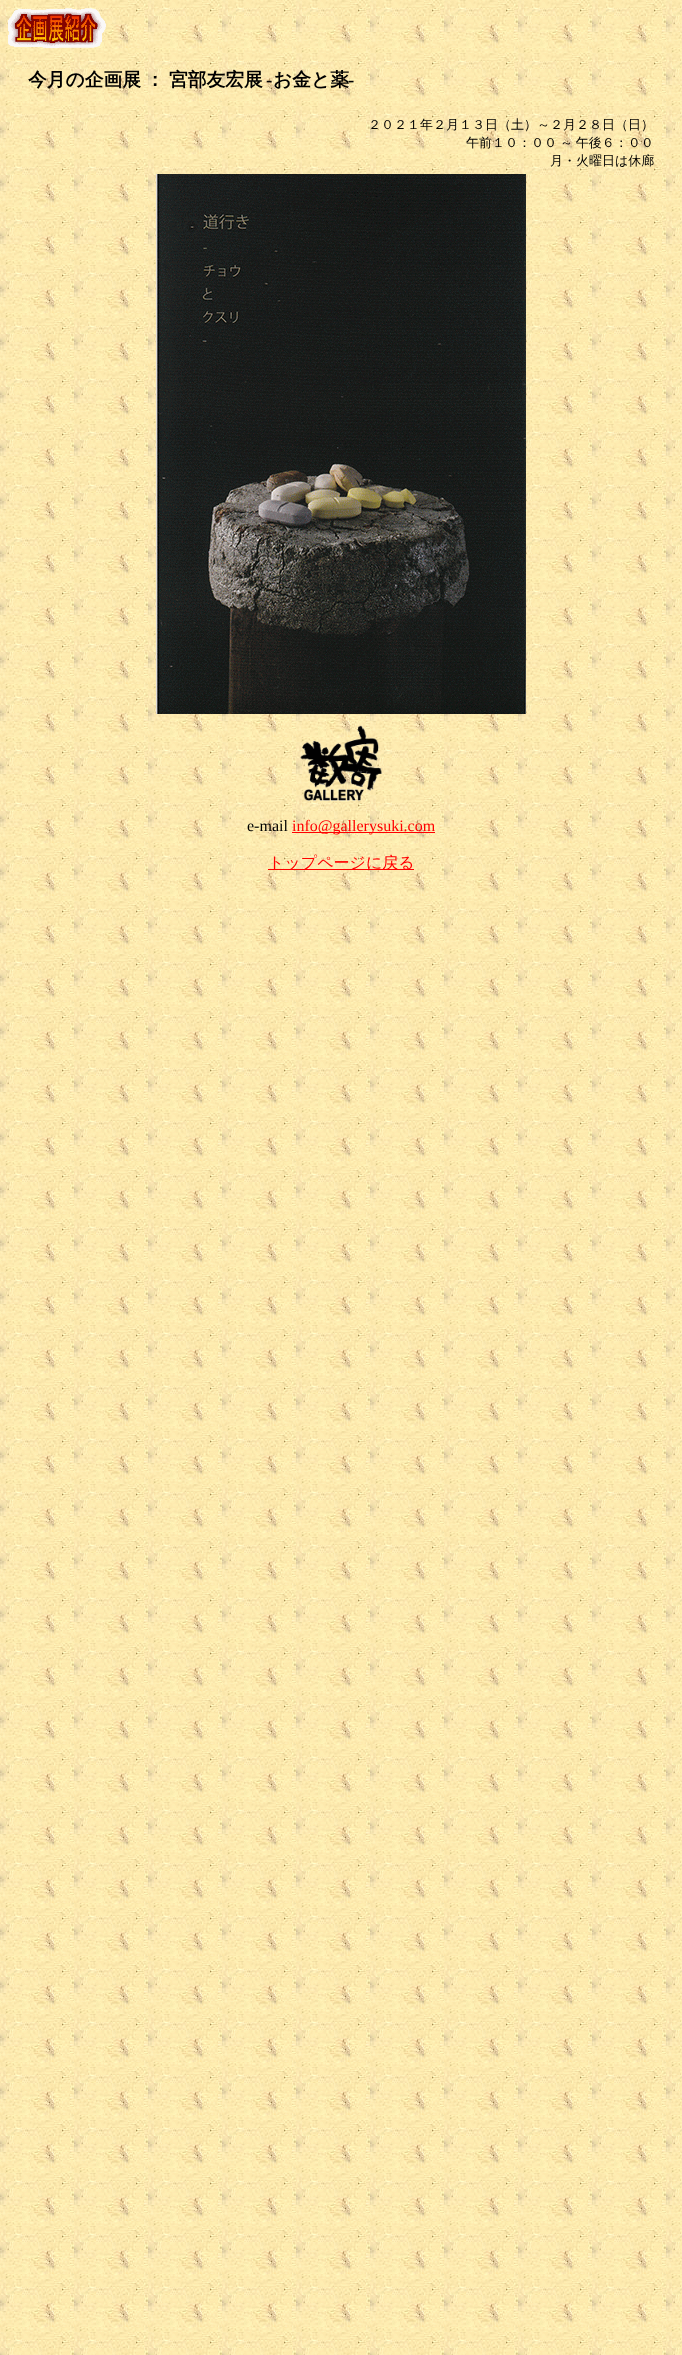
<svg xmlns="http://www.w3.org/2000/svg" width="682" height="2355">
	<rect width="100%" height="100%" fill="#FFFFFF" />
	<image x="0" y="0" width="682" height="2355" href="assets/img1.png" />
	<image x="8" y="8" width="98" height="40" href="assets/img2.png" />
	<text x="28" y="86" word-spacing="-1" font-family="WenQuanYi Zen Hei" font-size="18.75" font-weight="700" fill="#000000">今月の企画展 ： 宮部友宏展</text>
	<text x="266" y="86" font-family="Liberation Serif" font-size="18.75" font-weight="700" fill="#000000">‐</text>
	<text x="273" y="86" font-family="WenQuanYi Zen Hei" font-size="18.75" font-weight="700" fill="#000000">お金と薬</text>
	<text x="348" y="86" font-family="Liberation Serif" font-size="18.75" font-weight="700" fill="#000000">‐</text>
	<g font-family="WenQuanYi Zen Hei" font-size="13" font-weight="500" fill="#000000">
		<text x="368" y="129">２０２１年２月１３日（土）～２月２８日（日）</text>
		<text x="466" y="147" word-spacing="-1">午前１０：００ ～ 午後６：００</text>
		<text x="550" y="165">月・火曜日は休廊</text>
	</g>
	<image x="156" y="174" width="370" height="540" href="assets/img3.png" />
	<image x="300" y="725" width="82" height="76" href="assets/img4.png" />
	<text x="247" y="831" font-family="Liberation Serif" font-size="16" fill="#000000">e-mail</text>
	<rect x="292" y="832" width="143" height="1" fill="#FF0000" />
	<text x="292" y="831" font-family="Liberation Serif" font-size="16" fill="#FF0000">info@gallerysuki.com</text>
	<rect x="268" y="869" width="146" height="1" fill="#FF0000" />
	<text x="268" y="868" font-family="WenQuanYi Zen Hei" font-size="16" font-weight="500" fill="#FF0000">トップページに戻る</text>
</svg>
